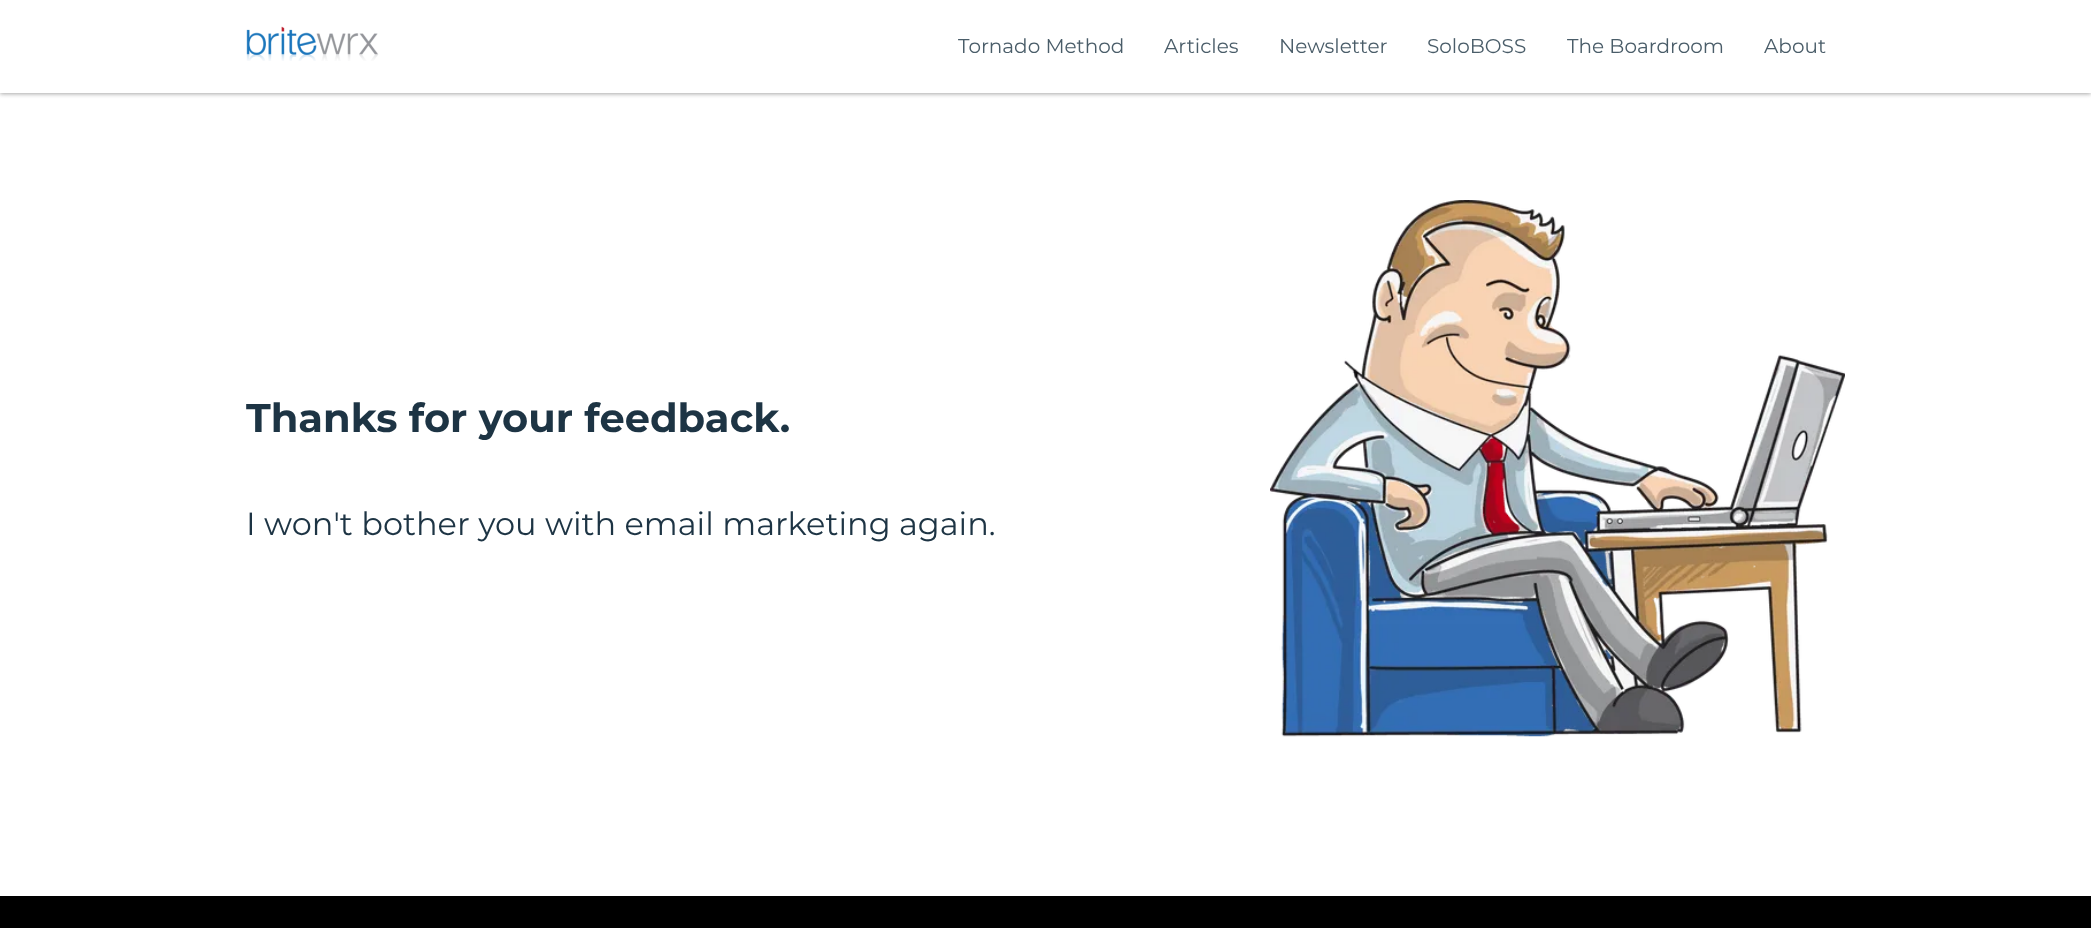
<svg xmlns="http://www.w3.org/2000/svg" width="2091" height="928">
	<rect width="100%" height="100%" fill="#FFFFFF" />
	<rect x="0" y="1" width="2091" height="93" fill="#A7A7A7" filter="blur(2px)" />
	<rect x="0" y="0" width="2091" height="93" fill="#FFFFFF" />
	<image x="246" y="26" width="133" height="35" href="assets/img1.png" />
	<g font-family="Montserrat" font-size="20" fill="#4A5D69">
		<text x="958" y="53">Tornado Method</text>
		<text x="1164" y="53">Articles</text>
		<text x="1279" y="53">Newsletter</text>
		<text x="1427" y="53">SoloBOSS</text>
		<text x="1567" y="53">The Boardroom</text>
		<text x="1764" y="53">About</text>
	</g>
	<text x="246" y="432" font-family="Montserrat" font-size="40" font-weight="700" fill="#1D3444">Thanks for your feedback.</text>
	<text x="246" y="535" font-family="Montserrat" font-size="32" fill="#1D3444">I won't bother you with email marketing again.</text>
	<image x="1270" y="200" width="575" height="537" href="assets/img2.png" />
	<rect x="0" y="896" width="2091" height="32" fill="#000000" />
</svg>
